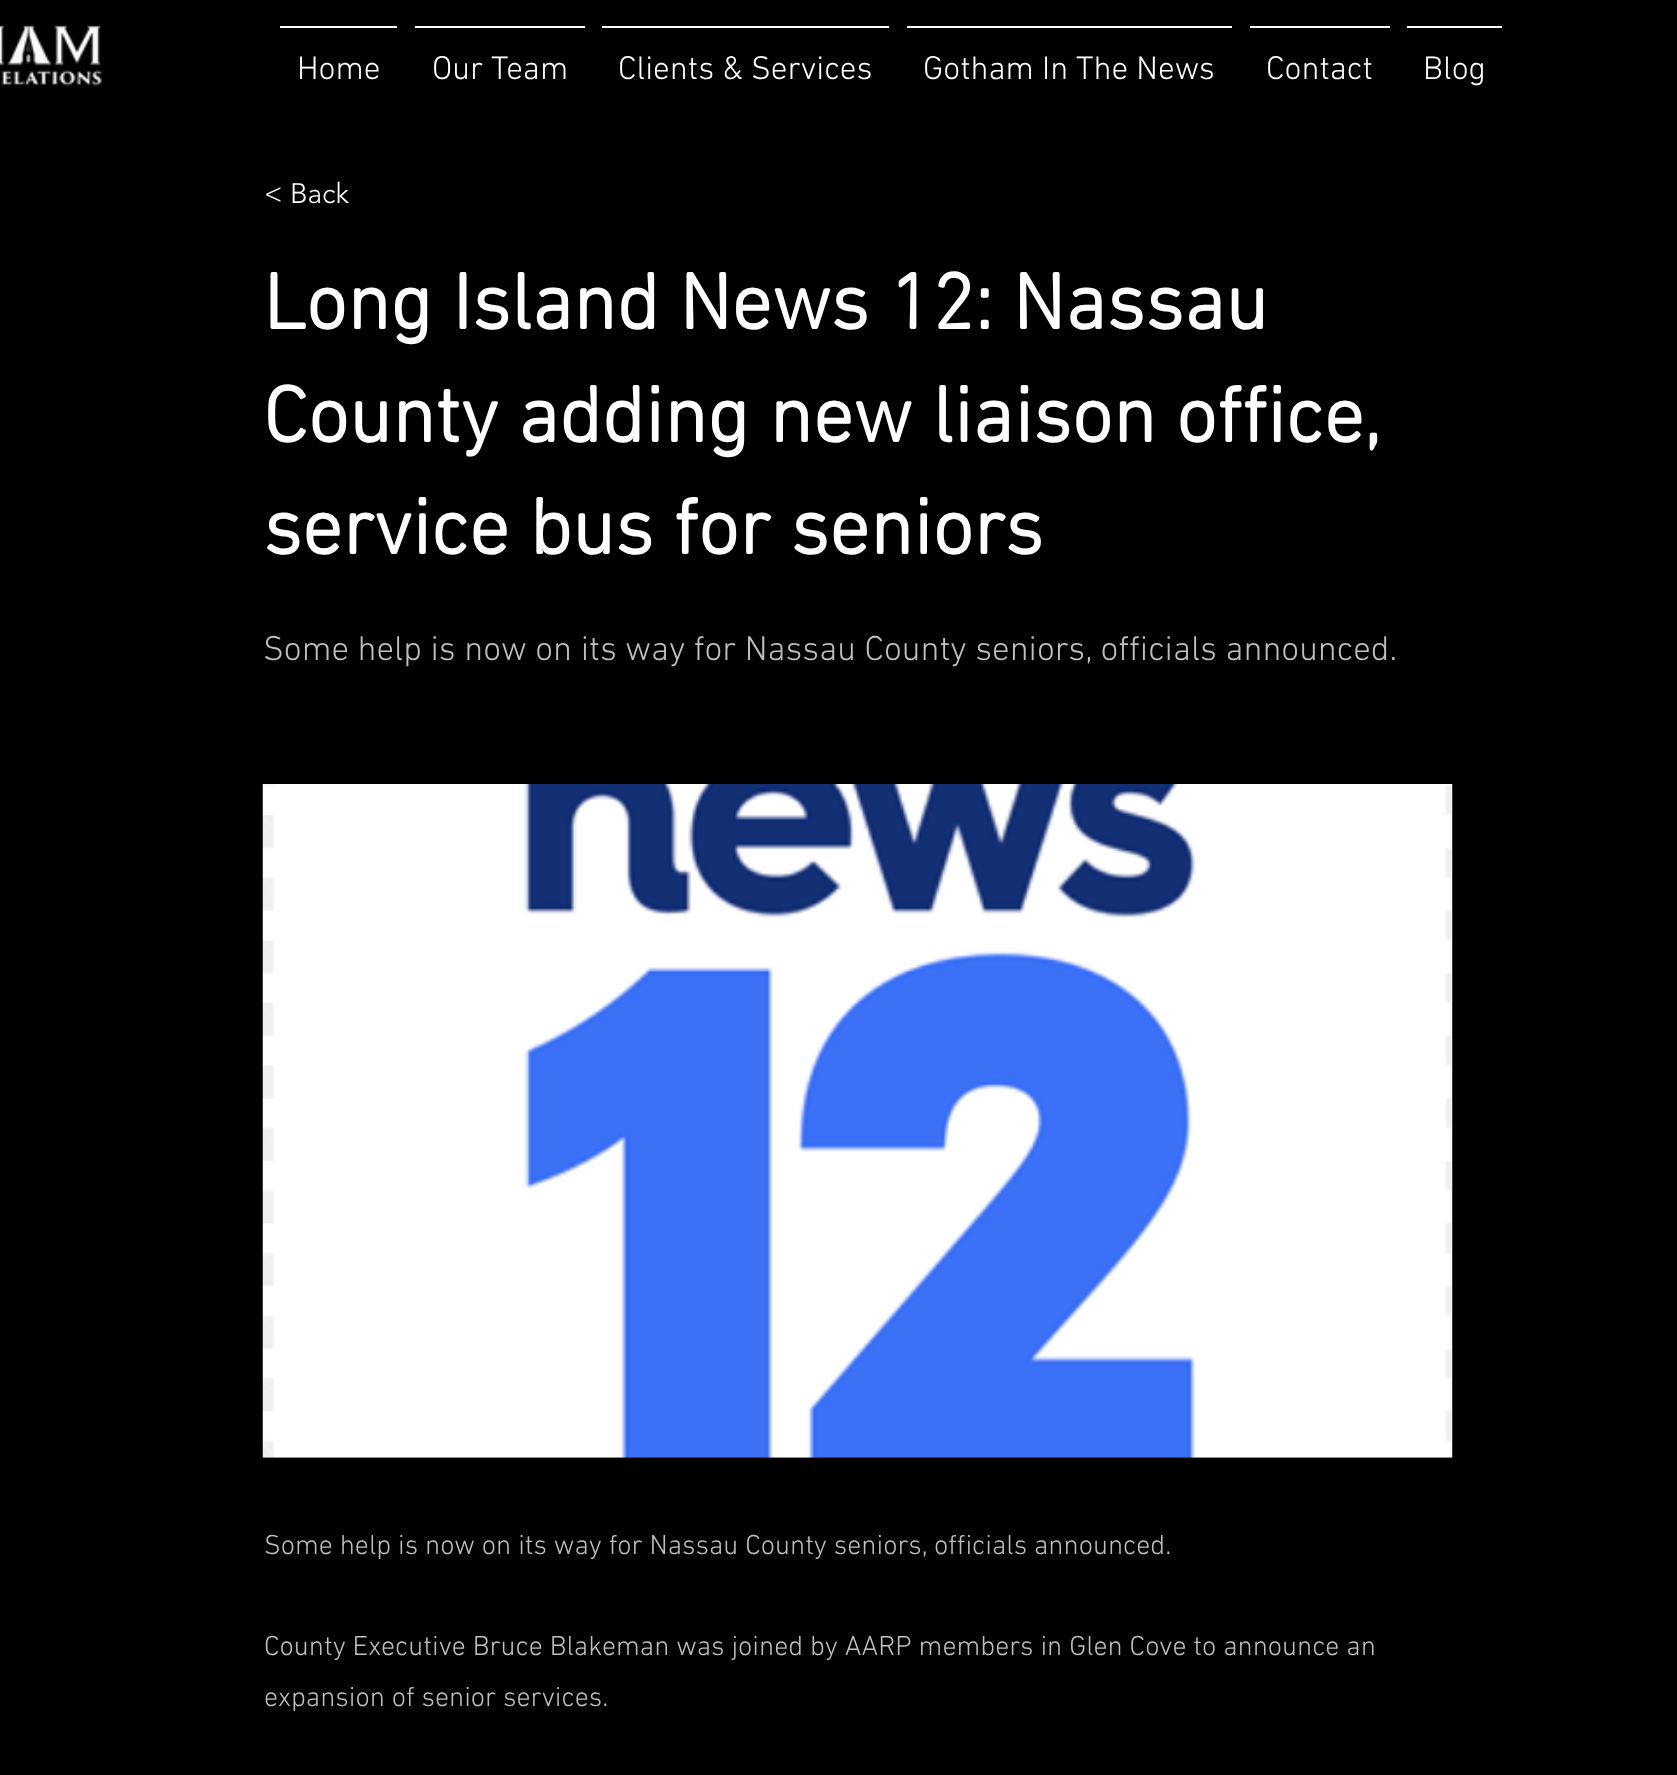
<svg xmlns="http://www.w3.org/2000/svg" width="1677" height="1775">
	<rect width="100%" height="100%" fill="#000000" />
	<image x="0" y="24" width="102" height="63" href="assets/img1.png" />
	<rect x="280" y="26" width="117" height="2" fill="#FFFFFF" />
	<text x="297" y="79" font-family="'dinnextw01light'" font-size="33.25" font-weight="300" fill="#FFFFFF">Home</text>
	<rect x="415" y="26" width="170" height="2" fill="#FFFFFF" />
	<text x="432" y="79" font-family="'dinnextw01light'" font-size="33.25" font-weight="300" fill="#FFFFFF">Our Team</text>
	<rect x="602" y="26" width="287" height="2" fill="#FFFFFF" />
	<text x="618" y="79" font-family="'dinnextw01light'" font-size="33.25" font-weight="300" fill="#FFFFFF">Clients &amp; Services</text>
	<rect x="907" y="26" width="325" height="2" fill="#FFFFFF" />
	<text x="923" y="79" font-family="'dinnextw01light'" font-size="33.25" font-weight="300" fill="#FFFFFF">Gotham In The News</text>
	<rect x="1250" y="26" width="140" height="2" fill="#FFFFFF" />
	<text x="1266" y="79" font-family="'dinnextw01light'" font-size="33.25" font-weight="300" fill="#FFFFFF">Contact</text>
	<rect x="1407" y="26" width="95" height="2" fill="#FFFFFF" />
	<text x="1423" y="79" font-family="'dinnextw01light'" font-size="33.25" font-weight="300" fill="#FFFFFF">Blog</text>
	<text x="264" y="203" font-family="'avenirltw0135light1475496'" font-size="28" font-weight="300" fill="#FFFFFF">&lt; Back</text>
	<g font-family="'dinnextw01light'" font-size="80.5" font-weight="700" fill="#FFFFFF">
		<text x="263" y="329">Long Island News 12: Nassau</text>
		<text x="263" y="442">County adding new liaison office,</text>
		<text x="263" y="554">service bus for seniors</text>
	</g>
	<text x="263" y="660" font-family="'dinnextw01light'" font-size="35" font-weight="300" fill="#BFBFBF">Some help is now on its way for Nassau County seniors, officials announced.</text>
	<image x="262" y="784" width="1191" height="674" href="assets/img2.png" />
	<g font-family="'dinnextw01light'" font-size="28" font-weight="300" fill="#BFBFBF">
		<text x="264" y="1554">Some help is now on its way for Nassau County seniors, officials announced.</text>
		<text x="264" y="1655">County Executive Bruce Blakeman was joined by AARP members in Glen Cove to announce an</text>
		<text x="264" y="1706">expansion of senior services.</text>
	</g>
</svg>
